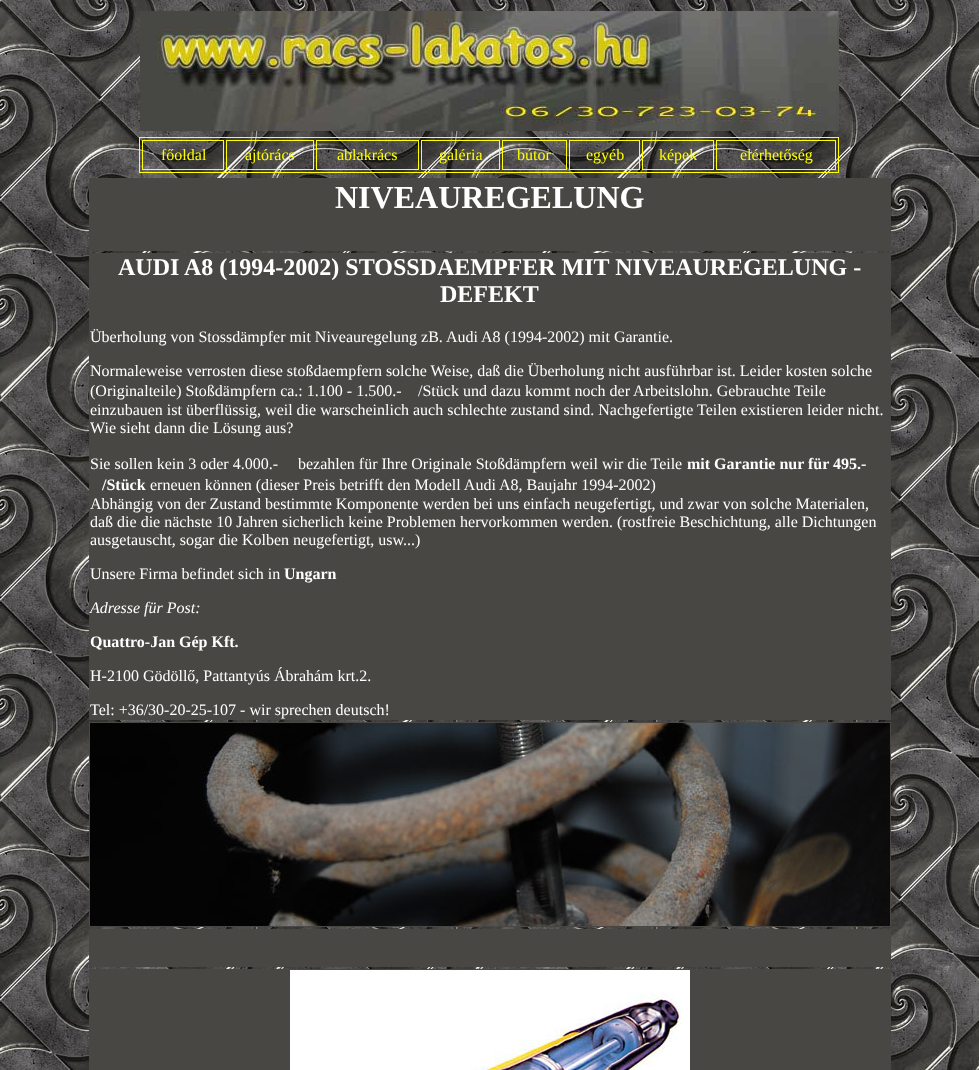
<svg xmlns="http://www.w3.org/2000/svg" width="979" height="1070">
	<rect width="100%" height="100%" fill="#FFFFFF" />
	<image x="0" y="0" width="979" height="1070" href="assets/img1.png" />
	<image x="140" y="11" width="699" height="120" href="assets/img2.png" />
	<rect x="139.5" y="137.5" width="699" height="35" fill="none" stroke="#FFFF00" />
	<rect x="142.5" y="140.5" width="81" height="29" fill="none" stroke="#FFFF00" />
	<text x="161" y="160" font-family="Liberation Serif" font-size="16" fill="#FFFF00">főoldal</text>
	<rect x="226.5" y="140.5" width="87" height="29" fill="none" stroke="#FFFF00" />
	<text x="245" y="160" font-family="Liberation Serif" font-size="16" fill="#FFFF00">ajtórács</text>
	<rect x="316.5" y="140.5" width="102" height="29" fill="none" stroke="#FFFF00" />
	<text x="337" y="160" font-family="Liberation Serif" font-size="16" fill="#FFFF00">ablakrács</text>
	<rect x="421.5" y="140.5" width="78" height="29" fill="none" stroke="#FFFF00" />
	<text x="439" y="160" font-family="Liberation Serif" font-size="16" fill="#FFFF00">galéria</text>
	<rect x="502.5" y="140.5" width="64" height="29" fill="none" stroke="#FFFF00" />
	<text x="517" y="160" font-family="Liberation Serif" font-size="16" fill="#FFFF00">bútor</text>
	<rect x="569.5" y="140.5" width="70" height="29" fill="none" stroke="#FFFF00" />
	<text x="586" y="160" font-family="Liberation Serif" font-size="16" fill="#FFFF00">egyéb</text>
	<rect x="642.5" y="140.5" width="71" height="29" fill="none" stroke="#FFFF00" />
	<text x="659" y="160" font-family="Liberation Serif" font-size="16" fill="#FFFF00">képek</text>
	<rect x="716.5" y="140.5" width="119" height="29" fill="none" stroke="#FFFF00" />
	<text x="740" y="160" font-family="Liberation Serif" font-size="16" fill="#FFFF00">elérhetőség</text>
	<rect x="89" y="178" width="802" height="73" fill="#484743" />
	<text x="335" y="208" font-family="Liberation Serif" font-size="32" font-weight="700" fill="#FFFFFF">NIVEAUREGELUNG</text>
	<rect x="89" y="253" width="802" height="467" fill="#484743" />
	<g font-family="Liberation Serif" font-size="24" font-weight="700" fill="#FFFFFF">
		<text x="118" y="275">AUDI A8 (1994-2002) STOSSDAEMPFER MIT NIVEAUREGELUNG -</text>
		<text x="440" y="302">DEFEKT</text>
	</g>
	<g font-family="Liberation Serif" font-size="16" fill="#FFFFFF">
		<text x="90" y="342">Überholung von Stossdämpfer mit Niveauregelung zB. Audi A8 (1994-2002) mit Garantie.</text>
		<text x="90" y="376">Normaleweise verrosten diese stoßdaempfern solche Weise, daß die Überholung nicht ausführbar ist. Leider kosten solche</text>
		<text x="90" y="396">(Originalteile) Stoßdämpfern ca.: 1.100 - 1.500.-</text>
		<text x="418" y="396">/Stück und dazu kommt noch der Arbeitslohn. Gebrauchte Teile</text>
		<text x="90" y="415">einzubauen ist überflüssig, weil die warscheinlich auch schlechte zustand sind. Nachgefertigte Teilen existieren leider nicht.</text>
		<text x="90" y="433">Wie sieht dann die Lösung aus?</text>
		<text x="90" y="469">Sie sollen kein 3 oder 4.000.-</text>
		<text x="298" y="469">bezahlen für Ihre Originale Stoßdämpfern weil wir die Teile</text>
	</g>
	<g font-family="Liberation Serif" font-size="16" font-weight="700" fill="#FFFFFF">
		<text x="687" y="469">mit Garantie nur für 495.-</text>
		<text x="102" y="490">/Stück</text>
	</g>
	<g font-family="Liberation Serif" font-size="16" fill="#FFFFFF">
		<text x="150" y="490">erneuen können (dieser Preis betrifft den Modell Audi A8, Baujahr 1994-2002)</text>
		<text x="90" y="509">Abhängig von der Zustand bestimmte Komponente werden bei uns einfach neugefertigt, und zwar von solche Materialen,</text>
		<text x="90" y="527">daß die die nächste 10 Jahren sicherlich keine Problemen hervorkommen werden. (rostfreie Beschichtung, alle Dichtungen</text>
		<text x="90" y="545">ausgetauscht, sogar die Kolben neugefertigt, usw...)</text>
		<text x="90" y="579">Unsere Firma befindet sich in</text>
	</g>
	<text x="284" y="579" font-family="Liberation Serif" font-size="16" font-weight="700" fill="#FFFFFF">Ungarn</text>
	<text x="90" y="613" font-family="Liberation Serif" font-size="16" font-style="italic" fill="#FFFFFF">Adresse für Post:</text>
	<text x="90" y="647" font-family="Liberation Serif" font-size="16" font-weight="700" fill="#FFFFFF">Quattro-Jan Gép Kft.</text>
	<g font-family="Liberation Serif" font-size="16" fill="#FFFFFF">
		<text x="90" y="681">H-2100 Gödöllő, Pattantyús Ábrahám krt.2.</text>
		<text x="90" y="715">Tel: +36/30-20-25-107 - wir sprechen deutsch!</text>
	</g>
	<rect x="89" y="722" width="802" height="205" fill="#484743" />
	<image x="90" y="723" width="800" height="203" href="assets/img3.png" />
	<rect x="89" y="929" width="802" height="38" fill="#484743" />
	<rect x="89" y="969" width="802" height="101" fill="#484743" />
	<image x="290" y="970" width="400" height="100" href="assets/img4.png" />
</svg>
